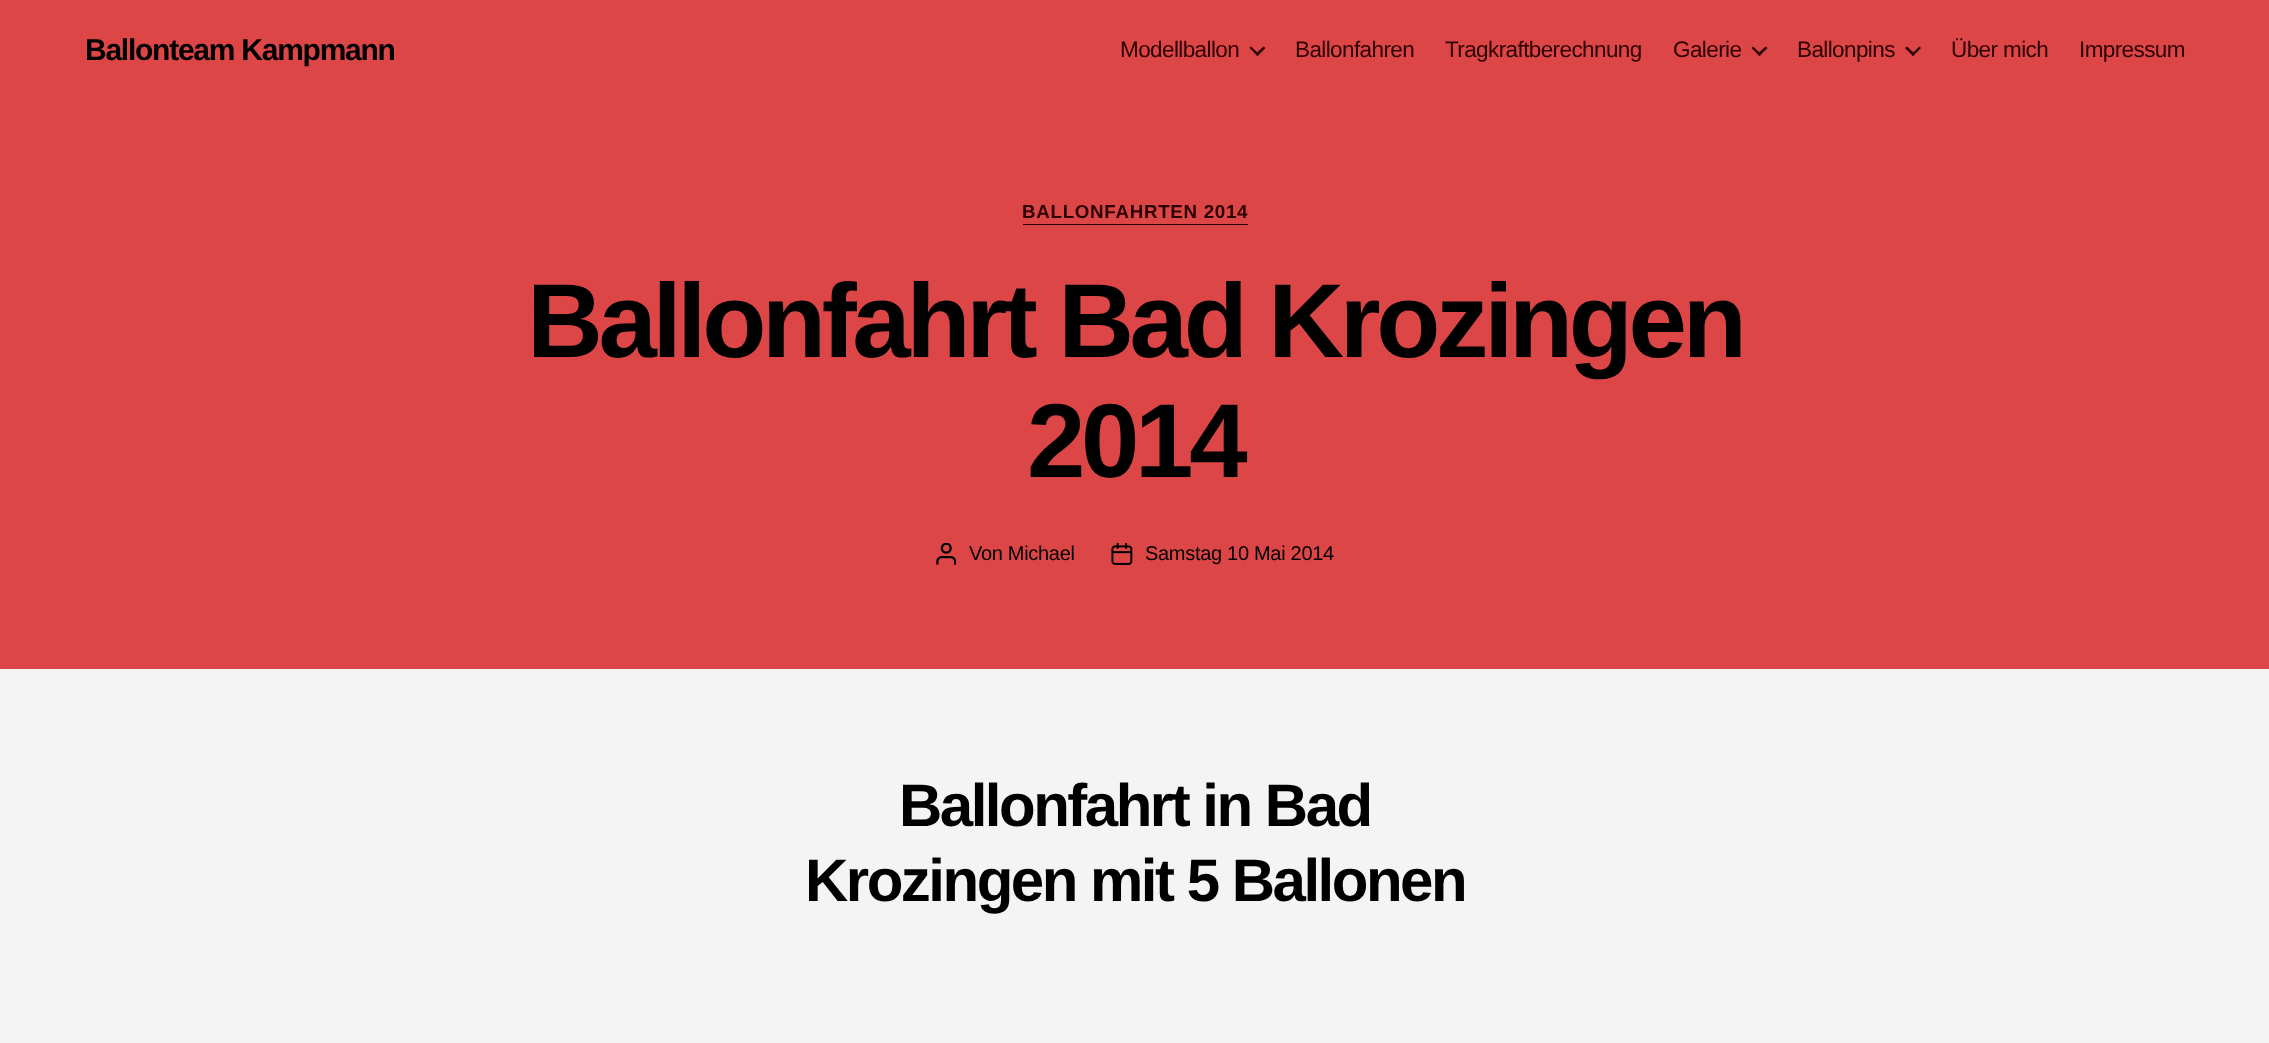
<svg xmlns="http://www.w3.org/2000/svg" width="2269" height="1043">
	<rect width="100%" height="100%" fill="#F4F4F4" />
	<rect x="0" y="0" width="2269" height="669" fill="#DD4646" />
	<text x="85" y="60" font-family="Liberation Sans" font-size="30" font-weight="700" letter-spacing="-1.25" fill="#000000">Ballonteam Kampmann</text>
	<text x="1120" y="57" font-family="Liberation Sans" font-size="22.5" letter-spacing="-0.6" fill="#2D0000">Modellballon</text>
	<path d="M1249.5 48L1251 46.5L1259 54L1257.5 56Z" fill="#2D0000" />
	<path d="M1255.5 54L1263.5 46.5L1265.5 48L1257.5 56Z" fill="#2D0000" />
	<g font-family="Liberation Sans" font-size="22.5" letter-spacing="-0.6" fill="#2D0000">
		<text x="1295" y="57">Ballonfahren</text>
		<text x="1445" y="57">Tragkraftberechnung</text>
		<text x="1673" y="57">Galerie</text>
	</g>
	<path d="M1751.5 48L1753 46.5L1761 54L1759.5 56Z" fill="#2D0000" />
	<path d="M1757.5 54L1765.5 46.5L1767.5 48L1759.5 56Z" fill="#2D0000" />
	<text x="1797" y="57" font-family="Liberation Sans" font-size="22.5" letter-spacing="-0.6" fill="#2D0000">Ballonpins</text>
	<path d="M1905 48L1907 46.5L1915 54L1913 56Z" fill="#2D0000" />
	<path d="M1911.5 54L1919.5 46.5L1921 48L1913 56Z" fill="#2D0000" />
	<g font-family="Liberation Sans" font-size="22.5" letter-spacing="-0.6" fill="#2D0000">
		<text x="1951" y="57">Über mich</text>
		<text x="2079" y="57">Impressum</text>
	</g>
	<rect x="1023" y="224" width="225" height="1" fill="#2D0000" />
	<text x="1022" y="218" font-family="Liberation Sans" font-size="18.75" font-weight="700" letter-spacing="0.7" fill="#2D0000">BALLONFAHRTEN 2014</text>
	<g font-family="Liberation Sans" font-size="105" font-weight="700" letter-spacing="-4.35" fill="#000000">
		<text x="527" y="357">Ballonfahrt Bad Krozingen</text>
		<text x="1027" y="477">2014</text>
	</g>
	<image x="936" y="543" width="20" height="22" href="assets/img1.png" />
	<text x="969" y="560" font-family="Liberation Sans" font-size="20" letter-spacing="-0.3" fill="#000000">Von Michael</text>
	<image x="1111" y="543" width="22" height="22" href="assets/img2.png" />
	<text x="1145" y="560" font-family="Liberation Sans" font-size="20" letter-spacing="-0.3" fill="#000000">Samstag 10 Mai 2014</text>
	<g font-family="Liberation Sans" font-size="60" font-weight="700" letter-spacing="-2.5" fill="#000000">
		<text x="899" y="826">Ballonfahrt in Bad</text>
		<text x="805" y="901">Krozingen mit 5 Ballonen</text>
	</g>
</svg>
